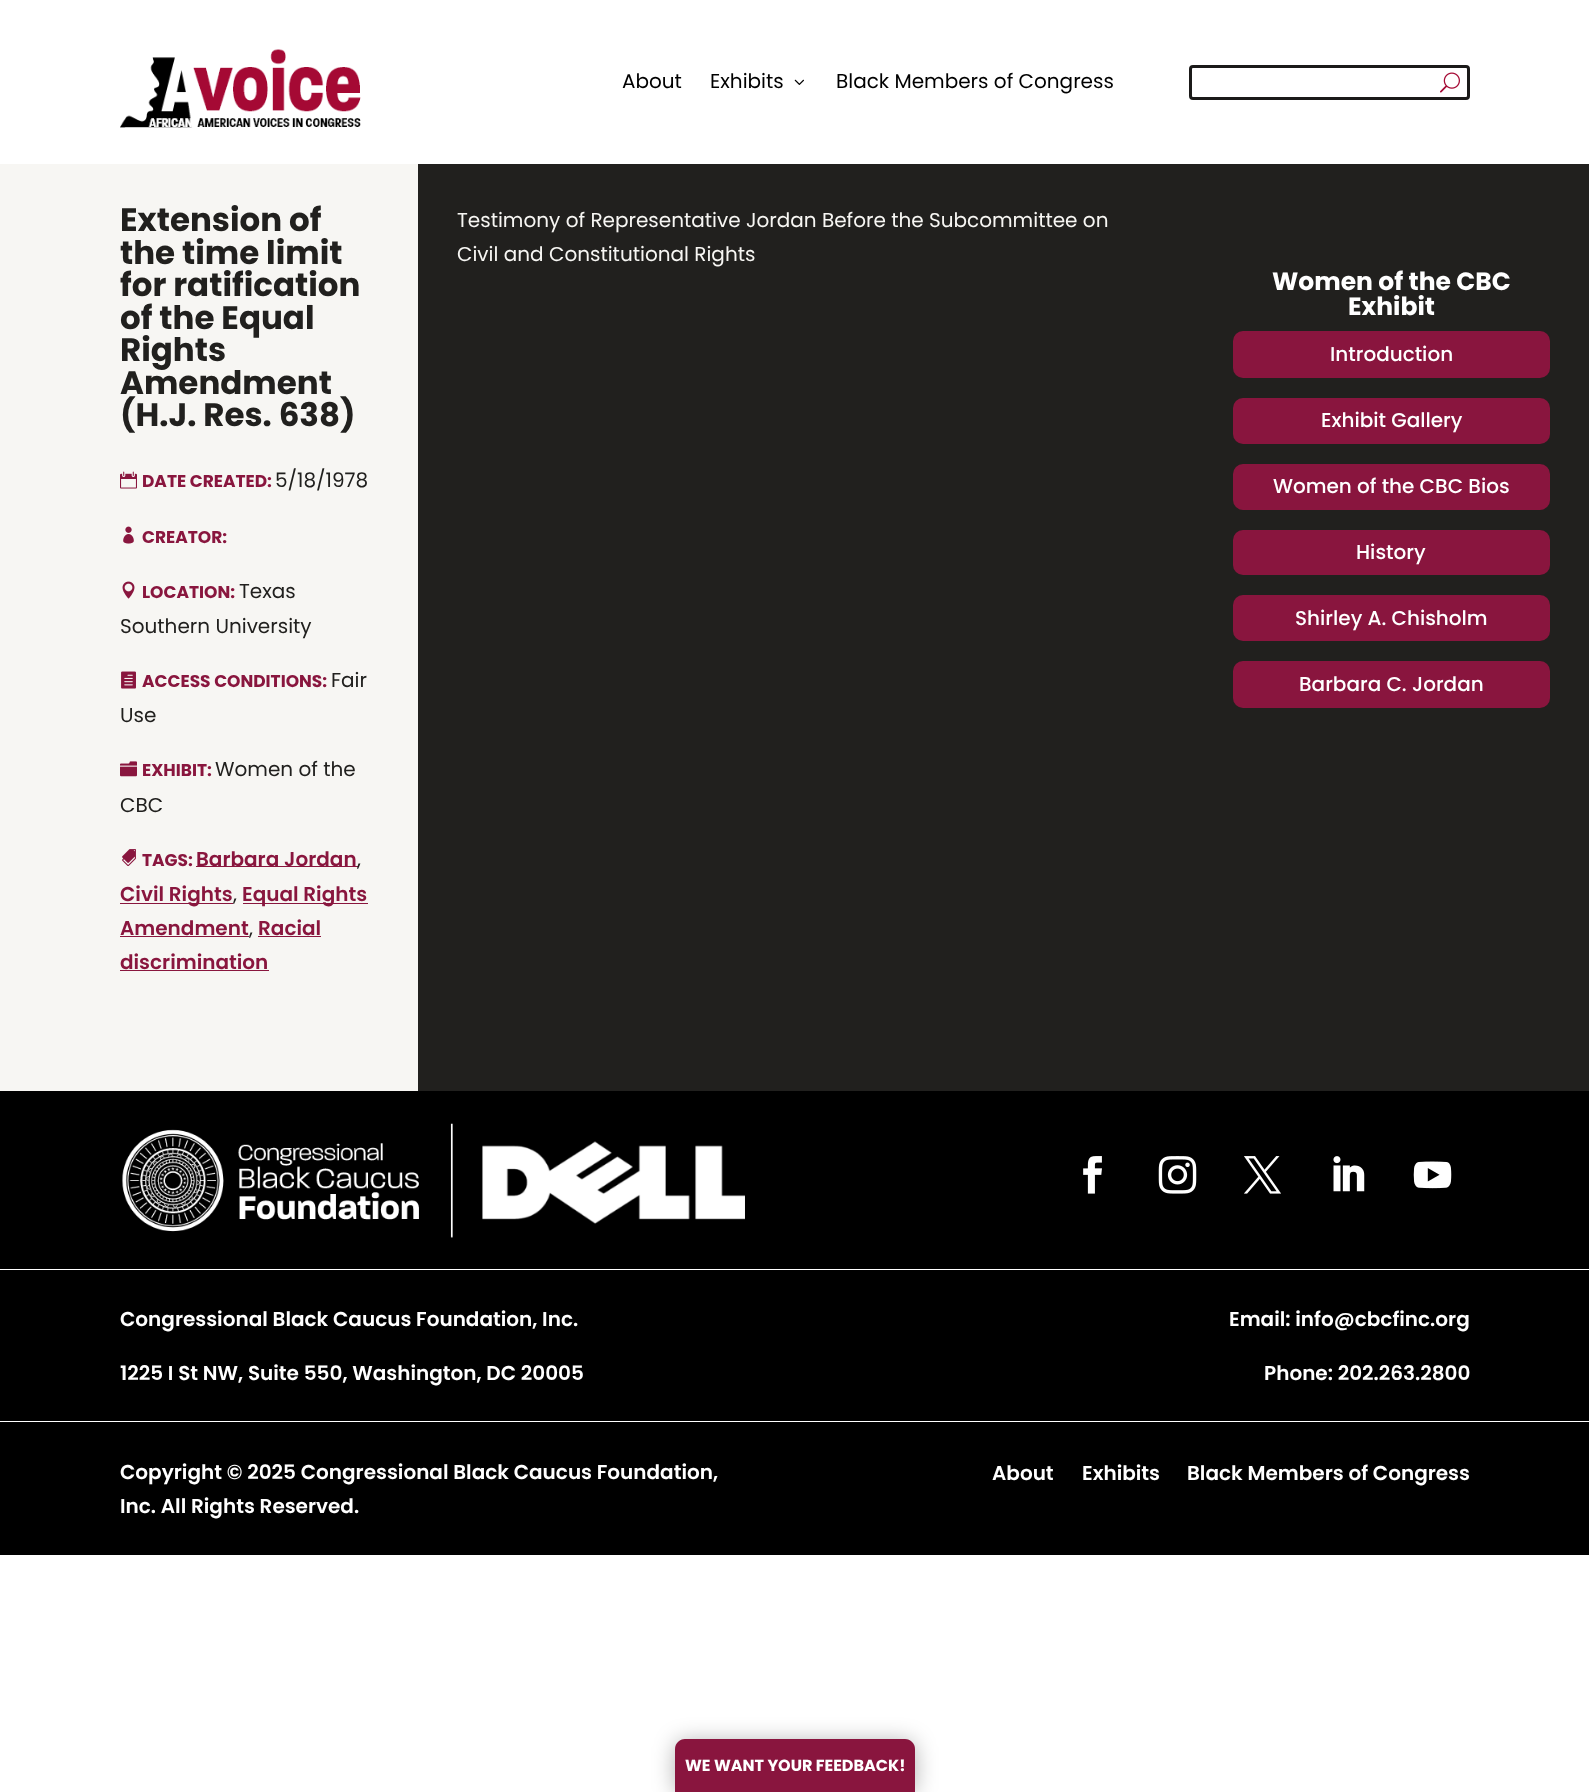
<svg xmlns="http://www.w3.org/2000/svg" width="1589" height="1792">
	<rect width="100%" height="100%" fill="#FFFFFF" />
	<image x="120" y="49" width="241" height="79" href="assets/img1.png" />
	<g font-family="Poppins" font-size="20" fill="#000000">
		<text x="622" y="88">About</text>
		<text x="710" y="88">Exhibits</text>
	</g>
	<image x="794" y="79" width="10" height="6" href="assets/img2.png" />
	<text x="836" y="88" font-family="Poppins" font-size="20" fill="#000000">Black Members of Congress</text>
	<rect x="1190.5" y="66.5" width="278" height="32" rx="2.5" fill="none" stroke="#1B1A19" stroke-width="3" />
	<image x="1440" y="72" width="20" height="21" href="assets/img3.png" />
	<rect x="418" y="164" width="1171" height="927" fill="#21201E" />
	<rect x="0" y="164" width="418" height="927" fill="#F7F6F3" />
	<g font-family="Poppins" font-size="32.5" font-weight="700" fill="#21201E">
		<text x="120" y="231">Extension of</text>
		<text x="120" y="264">the time limit</text>
		<text x="120" y="296">for ratification</text>
		<text x="120" y="329">of the Equal</text>
		<text x="120" y="361">Rights</text>
		<text x="120" y="394">Amendment</text>
		<text x="120" y="426">(H.J. Res. 638)</text>
	</g>
	<image x="120" y="471" width="17" height="18" href="assets/img4.png" />
	<text x="142" y="487" font-family="Poppins" font-size="17" font-weight="700" fill="#89163E">DATE CREATED:</text>
	<text x="275" y="487" font-family="Poppins" font-size="20" fill="#21201E">5/18/1978</text>
	<image x="123" y="526" width="11" height="18" href="assets/img5.png" />
	<text x="142" y="543" font-family="Poppins" font-size="17" font-weight="700" fill="#89163E">CREATOR:</text>
	<image x="122" y="581" width="13" height="18" href="assets/img6.png" />
	<text x="142" y="598" font-family="Poppins" font-size="17" font-weight="700" fill="#89163E">LOCATION:</text>
	<g font-family="Poppins" font-size="20" fill="#21201E">
		<text x="239" y="598">Texas</text>
		<text x="120" y="633">Southern University</text>
	</g>
	<image x="121" y="671" width="15" height="18" href="assets/img7.png" />
	<text x="142" y="687" font-family="Poppins" font-size="17" font-weight="700" fill="#89163E">ACCESS CONDITIONS:</text>
	<g font-family="Poppins" font-size="20" fill="#21201E">
		<text x="331" y="687">Fair</text>
		<text x="120" y="722">Use</text>
	</g>
	<image x="120" y="761" width="17" height="16" href="assets/img8.png" />
	<text x="142" y="776" font-family="Poppins" font-size="17" font-weight="700" fill="#89163E">EXHIBIT:</text>
	<g font-family="Poppins" font-size="20" fill="#21201E">
		<text x="215" y="776">Women of the</text>
		<text x="120" y="812">CBC</text>
	</g>
	<image x="122" y="849" width="14" height="17" href="assets/img9.png" />
	<text x="142" y="866" font-family="Poppins" font-size="17" font-weight="700" fill="#89163E">TAGS:</text>
	<rect x="196" y="866" width="162" height="1" fill="#89163E" />
	<text x="196" y="866" font-family="Poppins" font-size="20" font-weight="600" fill="#89163E">Barbara Jordan</text>
	<text x="357" y="866" font-family="Poppins" font-size="20" fill="#21201E">,</text>
	<rect x="120" y="903" width="113" height="1" fill="#89163E" />
	<text x="120" y="901" font-family="Poppins" font-size="20" font-weight="600" fill="#89163E">Civil Rights</text>
	<text x="233" y="901" font-family="Poppins" font-size="20" fill="#21201E">,</text>
	<rect x="243" y="903" width="125" height="1" fill="#89163E" />
	<g font-family="Poppins" font-size="20" font-weight="600" fill="#89163E">
		<text x="242" y="901">Equal Rights</text>
		<text x="120" y="935">Amendment</text>
	</g>
	<rect x="120" y="936" width="129" height="1" fill="#89163E" />
	<text x="249" y="935" font-family="Poppins" font-size="20" fill="#21201E">,</text>
	<text x="258" y="935" font-family="Poppins" font-size="20" font-weight="600" fill="#89163E">Racial</text>
	<rect x="258" y="936" width="63" height="1" fill="#89163E" />
	<text x="120" y="969" font-family="Poppins" font-size="20" font-weight="600" fill="#89163E">discrimination</text>
	<rect x="120" y="970" width="149" height="1" fill="#89163E" />
	<g font-family="Poppins" font-size="20" fill="#F7F6F3">
		<text x="457" y="227">Testimony of Representative Jordan Before the Subcommittee on</text>
		<text x="457" y="261">Civil and Constitutional Rights</text>
	</g>
	<g font-family="Poppins" font-size="25" font-weight="700" fill="#FFFFFF">
		<text x="1272" y="290">Women of the CBC</text>
		<text x="1348" y="315">Exhibit</text>
	</g>
	<rect x="1233" y="331" width="317" height="47" rx="10" fill="#89153E" />
	<text x="1330" y="361" font-family="Poppins" font-size="20" font-weight="500" fill="#FFFFFF">Introduction</text>
	<rect x="1233" y="398" width="317" height="46" rx="10" fill="#89153E" />
	<text x="1321" y="427" font-family="Poppins" font-size="20" font-weight="500" fill="#FFFFFF">Exhibit Gallery</text>
	<rect x="1233" y="464" width="317" height="46" rx="10" fill="#89153E" />
	<text x="1273" y="493" font-family="Poppins" font-size="20" font-weight="500" fill="#FFFFFF">Women of the CBC Bios</text>
	<rect x="1233" y="530" width="317" height="45" rx="10" fill="#89153E" />
	<text x="1356" y="559" font-family="Poppins" font-size="20" font-weight="500" fill="#FFFFFF">History</text>
	<rect x="1233" y="595" width="317" height="46" rx="10" fill="#89153E" />
	<text x="1295" y="625" font-family="Poppins" font-size="20" font-weight="500" fill="#FFFFFF">Shirley A. Chisholm</text>
	<rect x="1233" y="661" width="317" height="47" rx="10" fill="#89153E" />
	<text x="1299" y="691" font-family="Poppins" font-size="20" font-weight="500" fill="#FFFFFF">Barbara C. Jordan</text>
	<rect x="0" y="1091" width="1589" height="464" fill="#000000" />
	<image x="122" y="1123" width="623" height="115" href="assets/img10.png" />
	<image x="1083" y="1156" width="19" height="38" href="assets/img11.png" />
	<image x="1158" y="1156" width="39" height="38" href="assets/img12.png" />
	<image x="1244" y="1156" width="37" height="38" href="assets/img13.png" />
	<image x="1333" y="1156" width="32" height="36" href="assets/img14.png" />
	<image x="1413" y="1161" width="39" height="28" href="assets/img15.png" />
	<rect x="0" y="1269" width="1589" height="1" fill="#FFFFFF" />
	<rect x="0" y="1421" width="1589" height="1" fill="#FFFFFF" />
	<g font-family="Poppins" font-size="20" font-weight="600" fill="#FFFFFF">
		<text x="120" y="1326">Congressional Black Caucus Foundation, Inc.</text>
		<text x="120" y="1380">1225 I St NW, Suite 550, Washington, DC 20005</text>
		<text x="1229" y="1326">Email: info@cbcfinc.org</text>
		<text x="1264" y="1380">Phone: 202.263.2800</text>
		<text x="120" y="1479">Copyright © 2025 Congressional Black Caucus Foundation,</text>
		<text x="120" y="1513">Inc. All Rights Reserved.</text>
		<text x="992" y="1480">About</text>
		<text x="1082" y="1480">Exhibits</text>
		<text x="1187" y="1480">Black Members of Congress</text>
	</g>
	<rect x="675" y="1741" width="240" height="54" rx="10" fill="#000000" fill-opacity="0.3" filter="blur(11px)" />
	<path d="M685 1739H905C910.5 1739 915 1743.5 915 1749V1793H675V1749C675 1743.5 679.5 1739 685 1739Z" fill="#89153E" />
	<text x="685" y="1771" font-family="Poppins" font-size="16" font-weight="700" fill="#FFFFFF">WE WANT YOUR FEEDBACK!</text>
</svg>
